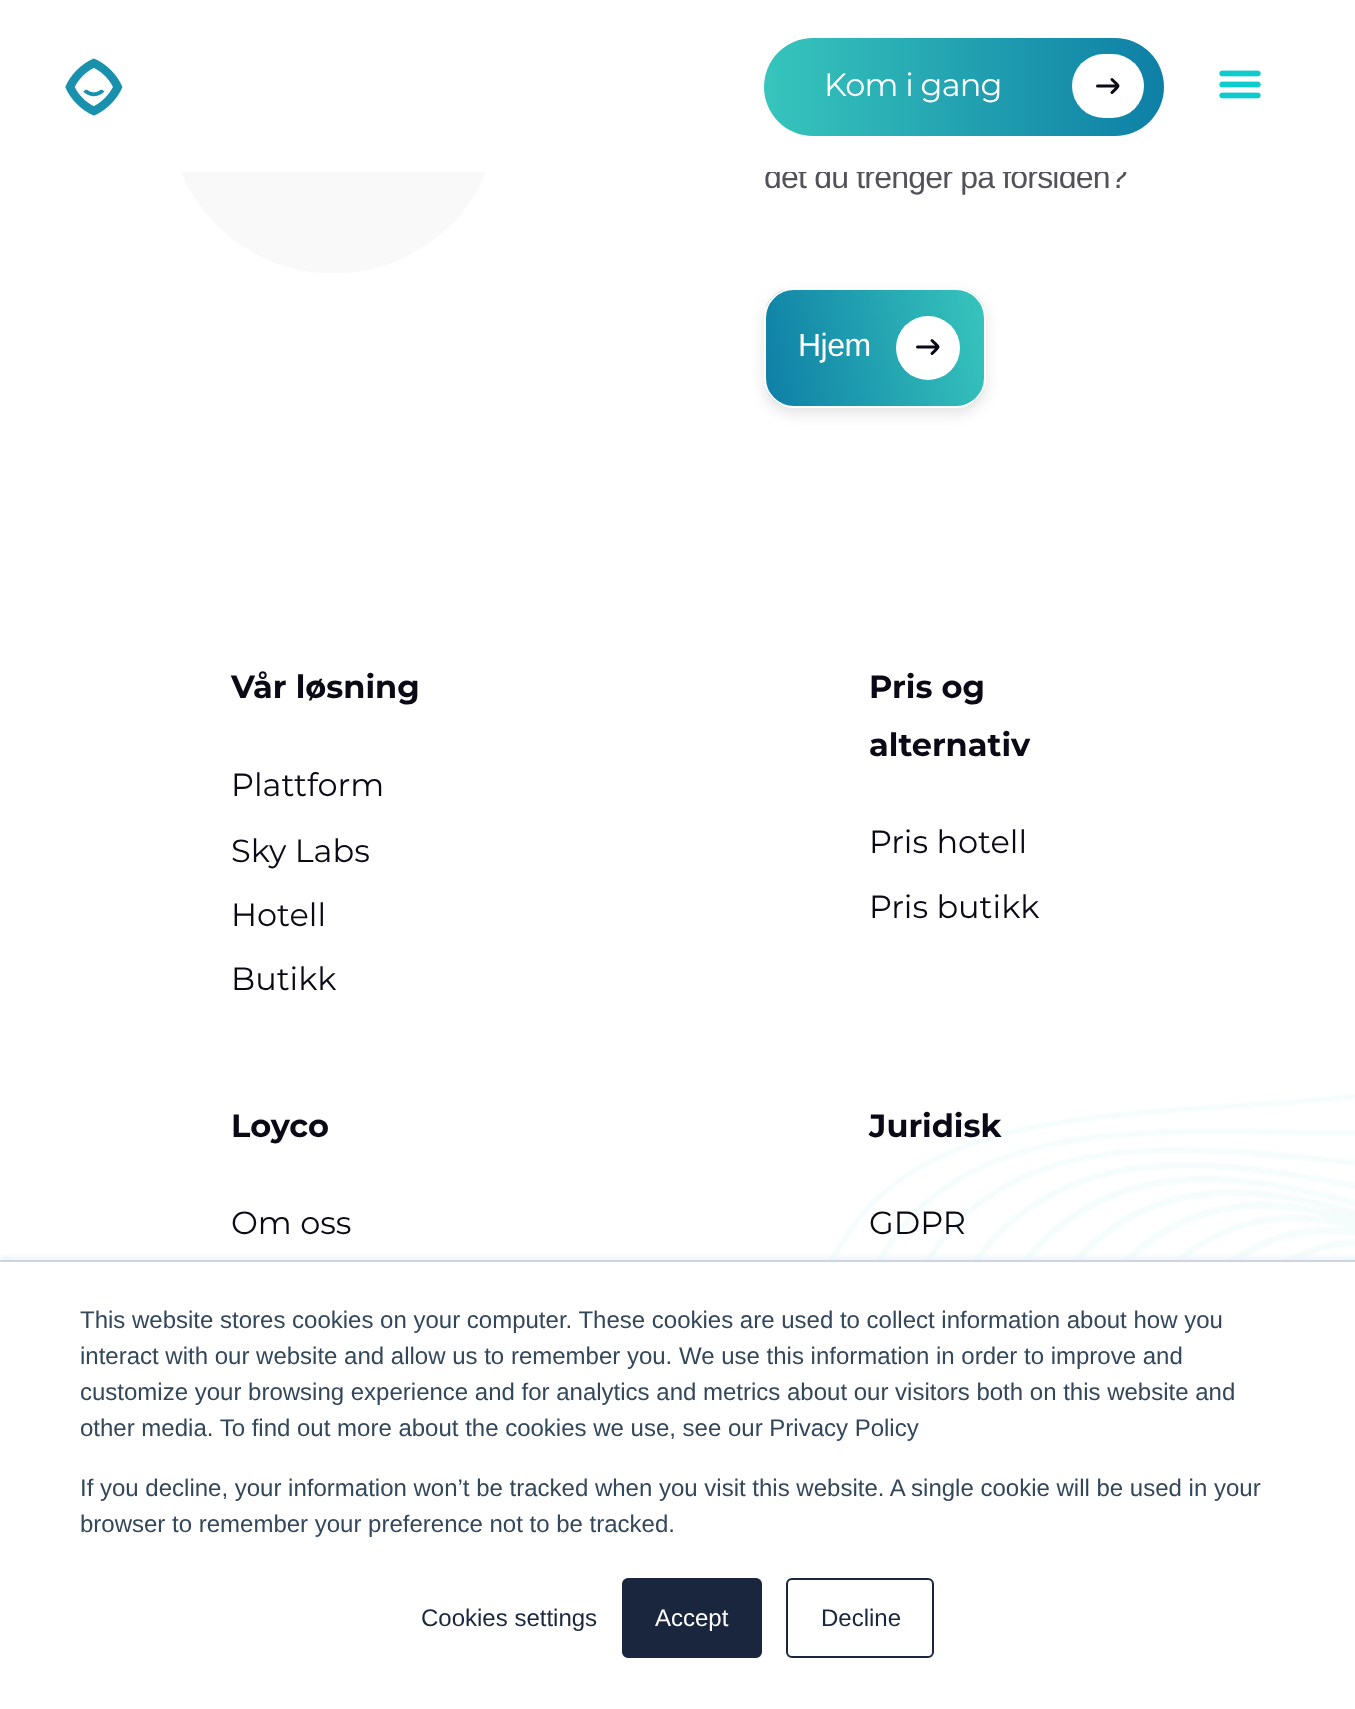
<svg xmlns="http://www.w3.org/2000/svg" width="1355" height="1709">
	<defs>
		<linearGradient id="g1" gradientUnits="userSpaceOnUse" x1="1164" y1="87" x2="764" y2="87"><stop offset="0" stop-color="#0E7FA6" /><stop offset="1" stop-color="#37C5BC" /></linearGradient>
		<clipPath id="clip1"><rect x="764" y="288" width="222" height="120" rx="30" /></clipPath>
		<linearGradient id="g2" gradientUnits="userSpaceOnUse" x1="759" y1="373" x2="991" y2="323"><stop offset="0" stop-color="#0E7FA6" /><stop offset="1" stop-color="#37C5BC" /></linearGradient>
	</defs>
	<rect width="100%" height="100%" fill="#FFFFFF" />
	<text x="764" y="188" font-family="Liberation Sans" font-size="32" letter-spacing="-0.8" fill="#52525A">det du trenger på forsiden?</text>
	<rect x="768" y="162" width="359" height="10" fill="#FFFFFF" />
	<image x="65" y="58" width="58" height="58" href="assets/img1.png" />
	<rect x="764" y="38" width="400" height="98" rx="49" fill="url(#g1)" />
	<text x="824" y="96" font-family="Montserrat" font-size="32" letter-spacing="-0.8" fill="#FFFFFF">Kom i gang</text>
	<rect x="1072" y="54" width="72" height="64" rx="32" fill="#FFFFFF" />
	<path d="M1117.5 86H1097.5M1112 79.5C1120 87.5 1120 84.5 1112 92.5" fill="none" stroke="#0A0915" stroke-width="3" stroke-linecap="round" stroke-linejoin="round" />
	<image x="1219" y="70" width="42" height="29" href="assets/img2.png" />
	<image x="180" y="172" width="307" height="101" href="assets/img3.png" />
	<rect x="764" y="294" width="222" height="120" rx="30" fill="#B3B3B3" fill-opacity="0.35" filter="blur(7px)" />
	<g clip-path="url(#clip1)">
		<rect x="766" y="290" width="218" height="116" fill="url(#g2)" />
	</g>
	<rect x="765" y="289" width="220" height="118" rx="29" fill="none" stroke="#FFFFFF" stroke-width="2" />
	<text x="798" y="356" font-family="Liberation Sans" font-size="32" letter-spacing="-0.5" fill="#FFFFFF">Hjem</text>
	<circle cx="928" cy="348" r="32" fill="#FFFFFF" />
	<path d="M937.5 347H917.5M932 340.5C940 348.5 940 345.5 932 353.5" fill="none" stroke="#0A0915" stroke-width="3" stroke-linecap="round" stroke-linejoin="round" />
	<image x="2" y="1094" width="1353" height="166" href="assets/img4.png" />
	<text x="231" y="698" font-family="Montserrat" font-size="32" font-weight="700" fill="#0A0915">Vår løsning</text>
	<g font-family="Montserrat" font-size="32" fill="#0A0915">
		<text x="231" y="796">Plattform</text>
		<text x="231" y="862">Sky Labs</text>
		<text x="231" y="926">Hotell</text>
		<text x="231" y="990">Butikk</text>
	</g>
	<g font-family="Montserrat" font-size="32" font-weight="700" fill="#0A0915">
		<text x="869" y="698">Pris og</text>
		<text x="869" y="756">alternativ</text>
	</g>
	<g font-family="Montserrat" font-size="32" fill="#0A0915">
		<text x="869" y="853">Pris hotell</text>
		<text x="869" y="918">Pris butikk</text>
	</g>
	<text x="231" y="1137" font-family="Montserrat" font-size="32" font-weight="700" fill="#0A0915">Loyco</text>
	<text x="231" y="1234" font-family="Montserrat" font-size="32" fill="#0A0915">Om oss</text>
	<text x="869" y="1137" font-family="Montserrat" font-size="32" font-weight="700" fill="#0A0915">Juridisk</text>
	<text x="869" y="1234" font-family="Montserrat" font-size="32" fill="#0A0915">GDPR</text>
	<rect x="0" y="1258" width="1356" height="450" fill="#EAF0F6" filter="blur(3px)" />
	<rect x="0" y="1262" width="1355" height="447" fill="#FFFFFF" />
	<rect x="0" y="1260" width="1355" height="2" fill="#CBD6E2" />
	<g font-family="Liberation Sans" font-size="24" fill="#33475B">
		<text x="80" y="1328">This website stores cookies on your computer. These cookies are used to collect information about how you</text>
		<text x="80" y="1364">interact with our website and allow us to remember you. We use this information in order to improve and</text>
		<text x="80" y="1400">customize your browsing experience and for analytics and metrics about our visitors both on this website and</text>
		<text x="80" y="1436">other media. To find out more about the cookies we use, see our Privacy Policy</text>
		<text x="80" y="1496">If you decline, your information won’t be tracked when you visit this website. A single cookie will be used in your</text>
		<text x="80" y="1532">browser to remember your preference not to be tracked.</text>
	</g>
	<text x="421" y="1626" font-family="Liberation Sans" font-size="24" fill="#1A263D">Cookies settings</text>
	<rect x="623" y="1579" width="138" height="78" rx="5" fill="#1A263D" stroke="#1A263D" stroke-width="2" />
	<text x="655" y="1626" font-family="Liberation Sans" font-size="24" fill="#FFFFFF">Accept</text>
	<rect x="787" y="1579" width="146" height="78" rx="5" fill="none" stroke="#1A263D" stroke-width="2" />
	<text x="821" y="1626" font-family="Liberation Sans" font-size="24" fill="#1A263D">Decline</text>
</svg>
